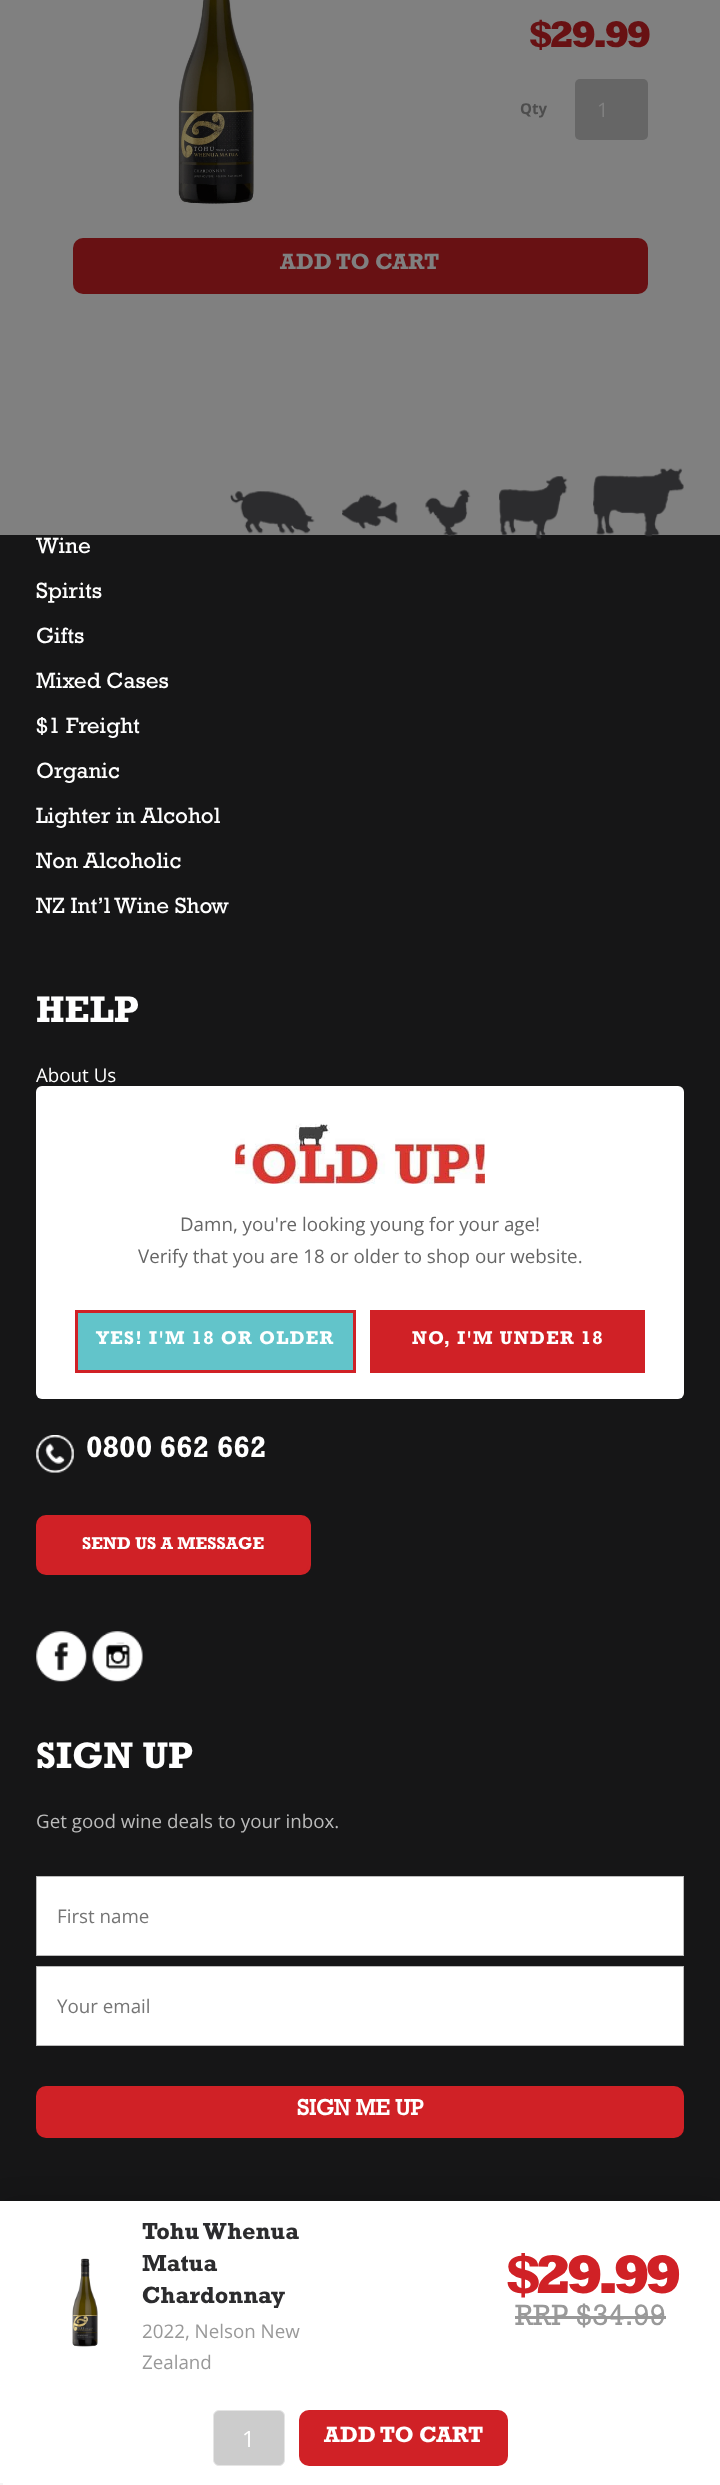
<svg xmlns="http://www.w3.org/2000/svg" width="720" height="2485">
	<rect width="100%" height="100%" fill="#808080" />
	<image x="178" y="0" width="76" height="204" href="assets/img1.png" />
	<text x="529" y="47" font-family="Rockwell" font-size="37.5" font-weight="800" letter-spacing="-3.75" fill="#681113">$29.99</text>
	<text x="520" y="114" font-family="Open Sans" font-size="15" font-weight="700" fill="#4D4D4D">Qty</text>
	<rect x="575" y="79" width="73" height="61" rx="5" fill="#666666" />
	<text x="597" y="117" font-family="Open Sans" font-size="20" fill="#808080">1</text>
	<rect x="73" y="238" width="575" height="56" rx="10" fill="#681113" />
	<text x="280" y="269" font-family="Rockwell" font-size="22.5" font-weight="700" fill="#808080">ADD TO CART</text>
	<rect x="0" y="535" width="720" height="1666" fill="#161617" />
	<image x="230" y="468" width="454" height="71" href="assets/img2.png" />
	<g font-family="Rockwell" font-size="22.5" fill="#FFFFFF">
		<text x="36" y="553">Wine</text>
		<text x="36" y="598">Spirits</text>
		<text x="36" y="643">Gifts</text>
		<text x="36" y="688">Mixed Cases</text>
		<text x="36" y="733">$1 Freight</text>
		<text x="36" y="778">Organic</text>
		<text x="36" y="823">Lighter in Alcohol</text>
		<text x="36" y="868">Non Alcoholic</text>
		<text x="36" y="913">NZ Int’l Wine Show</text>
	</g>
	<text x="36" y="1022" font-family="Rockwell" font-size="37.5" font-weight="700" fill="#FFFFFF">HELP</text>
	<text x="36" y="1082" font-family="Open Sans" font-size="18.75" fill="#FFFFFF">About Us</text>
	<image x="36" y="1435" width="38" height="38" href="assets/img3.png" />
	<text x="86" y="1457" font-family="Rockwell" font-size="30" font-weight="700" fill="#FFFFFF">0800 662 662</text>
	<rect x="37.5" y="1516.5" width="272" height="57" rx="8.5" fill="#D02126" stroke="#D02126" stroke-width="3" />
	<text x="82" y="1549" font-family="Rockwell" font-size="17.5" font-weight="700" fill="#FFFFFF">SEND US A MESSAGE</text>
	<image x="36" y="1631" width="51" height="51" href="assets/img4.png" />
	<image x="92" y="1631" width="51" height="51" href="assets/img5.png" />
	<text x="36" y="1768" font-family="Rockwell" font-size="37.5" font-weight="700" fill="#FFFFFF">SIGN UP</text>
	<text x="36" y="1828" font-family="Open Sans" font-size="18.75" fill="#BBBBBB">Get good wine deals to your inbox.</text>
	<rect x="36.5" y="1876.5" width="647" height="79" fill="#FFFFFF" stroke="#BBBBBB" />
	<text x="57" y="1923" font-family="Open Sans" font-size="18.75" fill="#757575">First name</text>
	<rect x="36.5" y="1966.5" width="647" height="79" fill="#FFFFFF" stroke="#BBBBBB" />
	<text x="57" y="2013" font-family="Open Sans" font-size="18.75" fill="#757575">Your email</text>
	<rect x="36" y="2086" width="648" height="52" rx="10" fill="#D02126" />
	<text x="297" y="2115" font-family="'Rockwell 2'" font-size="22.5" font-weight="700" fill="#FFFFFF">SIGN ME UP</text>
	<rect x="36" y="1086" width="648" height="313" rx="6" fill="#FFFFFF" />
	<image x="235" y="1123" width="250" height="61" href="assets/img6.png" />
	<g font-family="Open Sans" font-size="18.75" fill="#666666">
		<text x="180" y="1231">Damn, you're looking young for your age!</text>
		<text x="138" y="1263">Verify that you are 18 or older to shop our website.</text>
	</g>
	<rect x="76.5" y="1311.5" width="278" height="60" fill="#62C4CA" stroke="#D02126" stroke-width="3" />
	<text x="96" y="1344" font-family="Rockwell" font-size="18.75" font-weight="700" letter-spacing="1.25" fill="#FFFFFF">YES! I'M 18 OR OLDER</text>
	<rect x="370" y="1310" width="275" height="63" fill="#D02126" />
	<text x="412" y="1344" font-family="Rockwell" font-size="18.75" font-weight="700" letter-spacing="1.25" fill="#FFFFFF">NO, I'M UNDER 18</text>
	<rect x="0" y="2201" width="720" height="284" fill="#000000" fill-opacity="0.15" filter="blur(12.5px)" />
	<rect x="0" y="2201" width="720" height="284" fill="#FFFFFF" />
	<image x="72" y="2258" width="26" height="89" href="assets/img7.png" />
	<g font-family="Rockwell" font-size="23.75" font-weight="700" fill="#2C2C2E">
		<text x="142" y="2239">Tohu Whenua</text>
		<text x="142" y="2271">Matua</text>
		<text x="142" y="2303">Chardonnay</text>
	</g>
	<g font-family="Open Sans" font-size="18.75" fill="#999999">
		<text x="142" y="2338">2022, Nelson New</text>
		<text x="142" y="2369">Zealand</text>
	</g>
	<text x="506" y="2293" font-family="Rockwell" font-size="55" font-weight="800" letter-spacing="-6.25" fill="#D02126">$29.99</text>
	<text x="515" y="2325" font-family="Rockwell" font-size="30" fill="#999999">RRP $34.99</text>
	<rect x="515" y="2316" width="151" height="3" fill="#999999" />
	<rect x="213.5" y="2410.5" width="71" height="55" rx="5.5" fill="#CCCCCC" stroke="#E5E5E5" />
	<text x="242" y="2447" font-family="Open Sans" font-size="22.5" fill="#FFFFFF">1</text>
	<rect x="299" y="2410" width="209" height="56" rx="10" fill="#D02126" />
	<text x="324" y="2442" font-family="Rockwell" font-size="22.5" font-weight="700" fill="#FFFFFF">ADD TO CART</text>
	<rect x="0" y="2483" width="3" height="2" fill="#F5F5F5" />
</svg>
